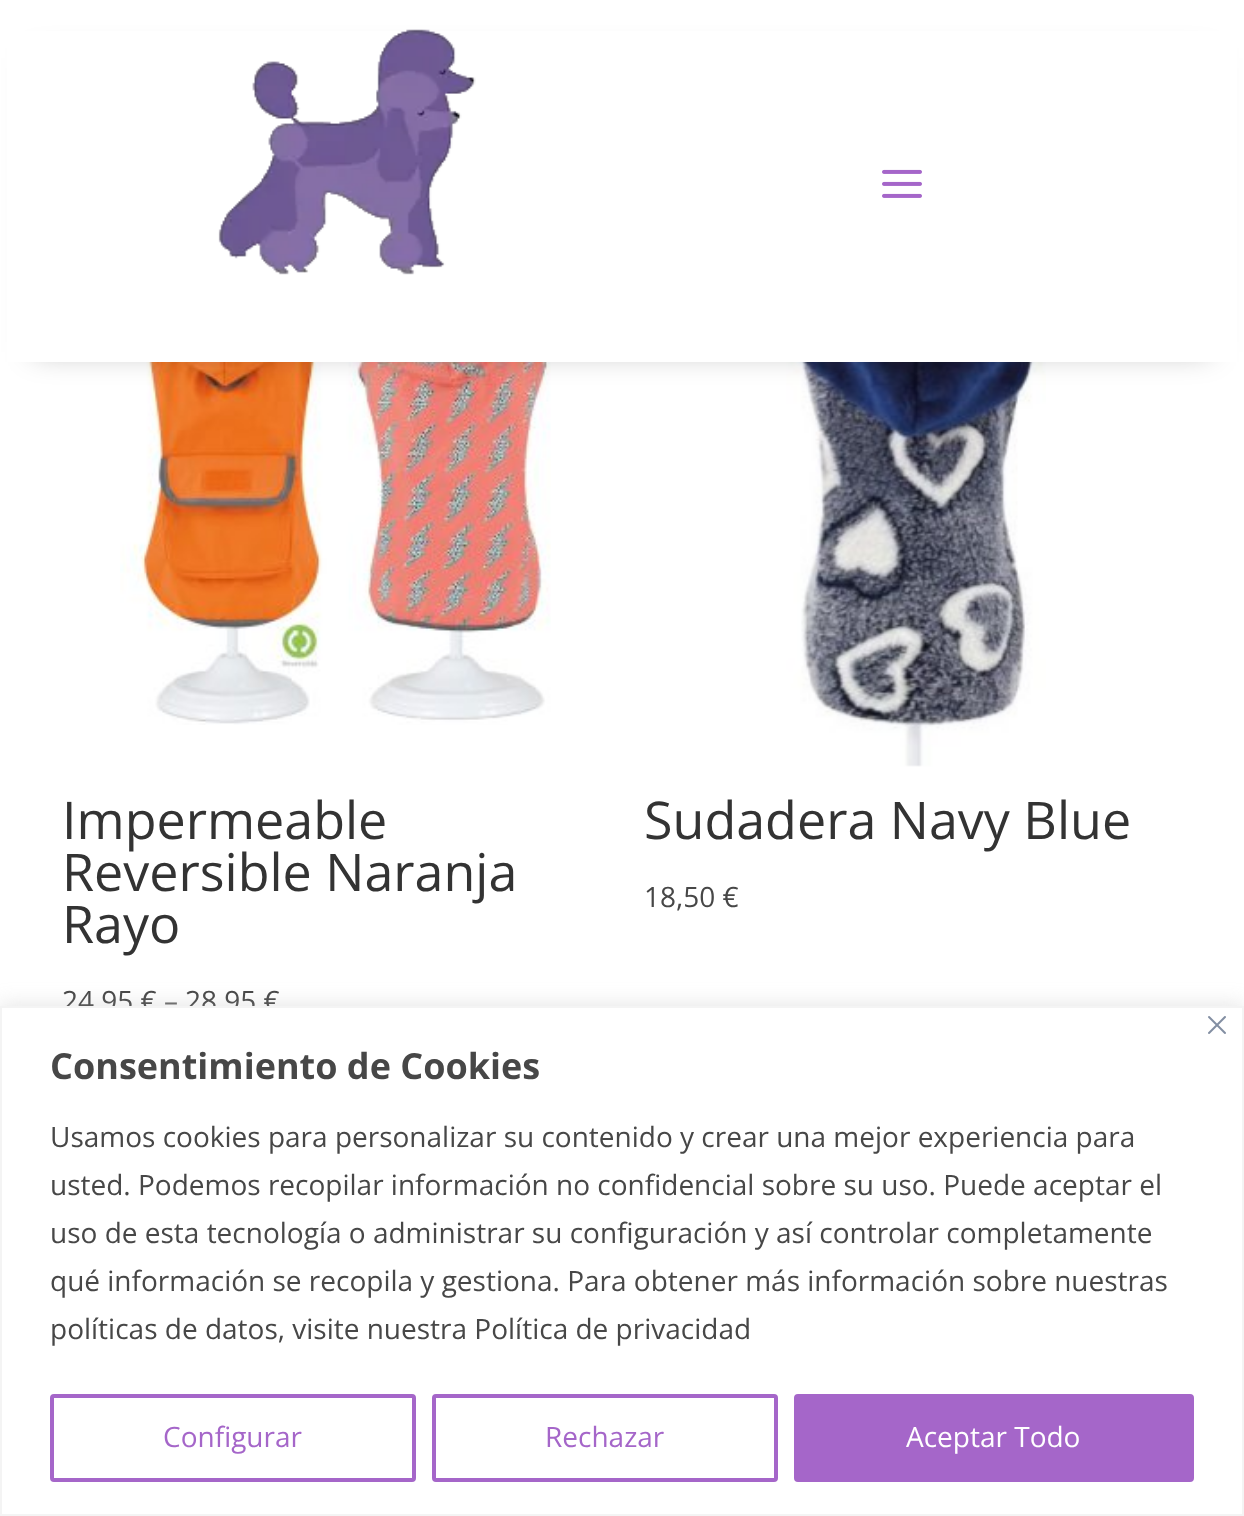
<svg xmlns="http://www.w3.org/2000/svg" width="1244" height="1516">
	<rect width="100%" height="100%" fill="#FFFFFF" />
	<image x="120" y="362" width="431" height="363" href="assets/img3.png" />
	<image x="786" y="362" width="260" height="405" href="assets/img4.png" />
	<rect x="34" y="58" width="1176" height="294" fill="#000000" fill-opacity="0.3" filter="blur(15px)" />
	<rect x="7" y="31" width="1230" height="331" fill="#FFFFFF" />
	<image x="218" y="29" width="258" height="246" href="assets/img1.png" />
	<image x="882" y="169" width="40" height="29" href="assets/img2.png" />
	<g font-family="Open Sans" font-size="52" fill="#333333">
		<text x="62" y="839">Impermeable</text>
		<text x="62" y="891">Reversible Naranja</text>
		<text x="62" y="943">Rayo</text>
	</g>
	<text x="62" y="1011" font-family="Open Sans" font-size="28" fill="#474747">24,95 €</text>
	<text x="164" y="1011" font-family="Open Sans" font-size="28" fill="#666666">–</text>
	<text x="185" y="1011" font-family="Open Sans" font-size="28" fill="#474747">28,95 €</text>
	<text x="644" y="839" font-family="Open Sans" font-size="52" fill="#333333">Sudadera Navy Blue</text>
	<text x="644" y="907" font-family="Open Sans" font-size="28" fill="#474747">18,50 €</text>
	<rect x="0" y="1004" width="1244" height="510" fill="#ACABAB" fill-opacity="0.3" filter="blur(10px)" />
	<rect x="1" y="1007" width="1242" height="508" fill="#FFFFFF" stroke="#F4F4F4" stroke-width="2" />
	<image x="1208" y="1016" width="18" height="18" href="assets/img5.png" />
	<text x="50" y="1079" font-family="Open Sans" font-size="36" font-weight="700" fill="#474747">Consentimiento de Cookies</text>
	<g font-family="Open Sans" font-size="28" fill="#474747">
		<text x="50" y="1147">Usamos cookies para personalizar su contenido y crear una mejor experiencia para</text>
		<text x="50" y="1195">usted. Podemos recopilar información no confidencial sobre su uso. Puede aceptar el</text>
		<text x="50" y="1243">uso de esta tecnología o administrar su configuración y así controlar completamente</text>
		<text x="50" y="1291">qué información se recopila y gestiona. Para obtener más información sobre nuestras</text>
		<text x="50" y="1339">políticas de datos, visite nuestra Política de privacidad</text>
	</g>
	<rect x="52" y="1396" width="362" height="84" rx="2" fill="none" stroke="#A566C9" stroke-width="4" />
	<text x="163" y="1447" font-family="Open Sans" font-size="28" fill="#A566C9">Configurar</text>
	<rect x="434" y="1396" width="342" height="84" rx="2" fill="none" stroke="#A566C9" stroke-width="4" />
	<text x="545" y="1447" font-family="Open Sans" font-size="28" fill="#A566C9">Rechazar</text>
	<rect x="796" y="1396" width="396" height="84" rx="2" fill="#A566C9" stroke="#A566C9" stroke-width="4" />
	<text x="906" y="1447" font-family="Open Sans" font-size="28" fill="#FFFFFF">Aceptar Todo</text>
</svg>
